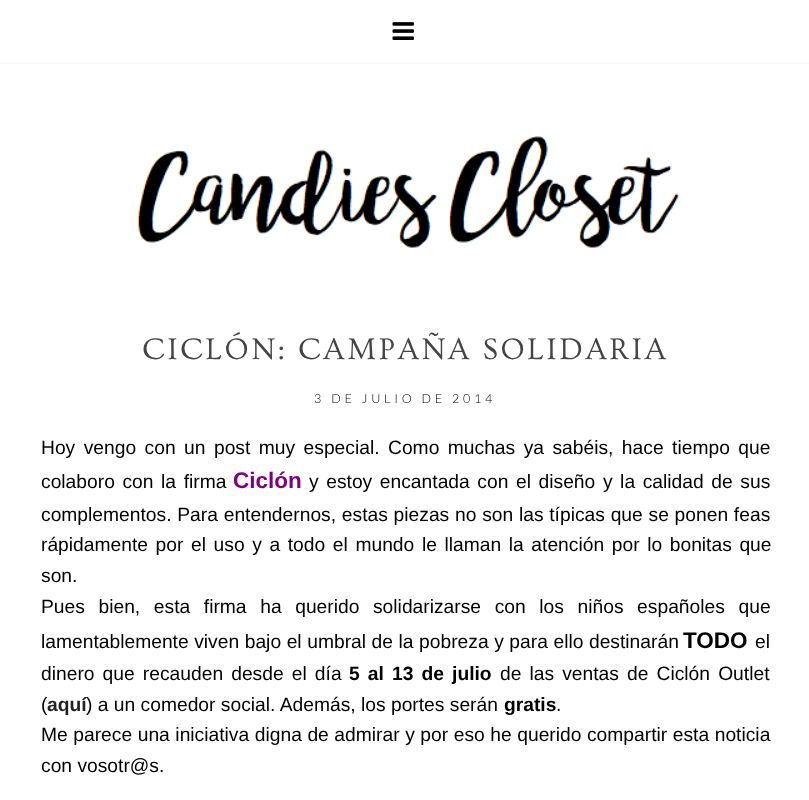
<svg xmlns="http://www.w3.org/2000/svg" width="809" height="800">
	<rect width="100%" height="100%" fill="#FFFFFF" />
	<rect x="0" y="63" width="809" height="1" fill="#F9F9F9" />
	<image x="392" y="22" width="22" height="18" href="assets/img1.png" />
	<image x="137" y="136" width="542" height="112" href="assets/img2.png" />
	<text x="142" y="359" font-family="Ovo" font-size="31.25" letter-spacing="2.5" fill="#444444">CICLÓN: CAMPAÑA SOLIDARIA</text>
	<text x="314" y="403" font-family="Lato" font-size="12.5" font-weight="300" letter-spacing="3.75" fill="#000000">3 DE JULIO DE 2014</text>
	<g font-family="Liberation Sans" font-size="19.25" fill="#000000">
		<text x="41" y="454" word-spacing="3.1">Hoy vengo con un post muy especial. Como muchas ya sabéis, hace tiempo que</text>
		<text x="41" y="488" word-spacing="2.25">colaboro con la firma</text>
	</g>
	<text x="233" y="488" font-family="Liberation Sans" font-size="22.5" font-weight="700" fill="#800080">Ciclón</text>
	<g font-family="Liberation Sans" font-size="19.25" fill="#000000">
		<text x="309" y="488" word-spacing="2.25">y estoy encantada con el diseño y la calidad de sus</text>
		<text x="41" y="521" word-spacing="0.4">complementos. Para entendernos, estas piezas no son las típicas que se ponen feas</text>
		<text x="41" y="551" word-spacing="2.25">rápidamente por el uso y a todo el mundo le llaman la atención por lo bonitas que</text>
		<text x="41" y="582">son.</text>
		<text x="41" y="613" word-spacing="8.25">Pues bien, esta firma ha querido solidarizarse con los niños españoles que</text>
		<text x="41" y="648" word-spacing="0.2">lamentablemente viven bajo el umbral de la pobreza y para ello destinarán</text>
	</g>
	<text x="683" y="648" font-family="Liberation Sans" font-size="22.5" font-weight="700" fill="#000000">TODO</text>
	<g font-family="Liberation Sans" font-size="19.25" fill="#000000">
		<text x="755" y="648">el</text>
		<text x="41" y="680" word-spacing="2.75">dinero que recauden desde el día</text>
	</g>
	<text x="349" y="680" word-spacing="2.75" font-family="Liberation Sans" font-size="19.25" font-weight="700" fill="#000000">5 al 13 de julio</text>
	<g font-family="Liberation Sans" font-size="19.25" fill="#000000">
		<text x="500" y="680" word-spacing="2.75">de las ventas de Ciclón Outlet</text>
		<text x="41" y="711">(</text>
	</g>
	<text x="47" y="711" font-family="Liberation Sans" font-size="19.25" font-weight="700" fill="#222222">aquí</text>
	<text x="86" y="711" font-family="Liberation Sans" font-size="19.25" fill="#000000">) a un comedor social. Además, los portes serán</text>
	<text x="504" y="711" font-family="Liberation Sans" font-size="19.25" font-weight="700" fill="#000000">gratis</text>
	<g font-family="Liberation Sans" font-size="19.25" fill="#000000">
		<text x="556" y="711">.</text>
		<text x="41" y="741" word-spacing="0.2">Me parece una iniciativa digna de admirar y por eso he querido compartir esta noticia</text>
		<text x="41" y="772">con vosotr@s.</text>
	</g>
</svg>
